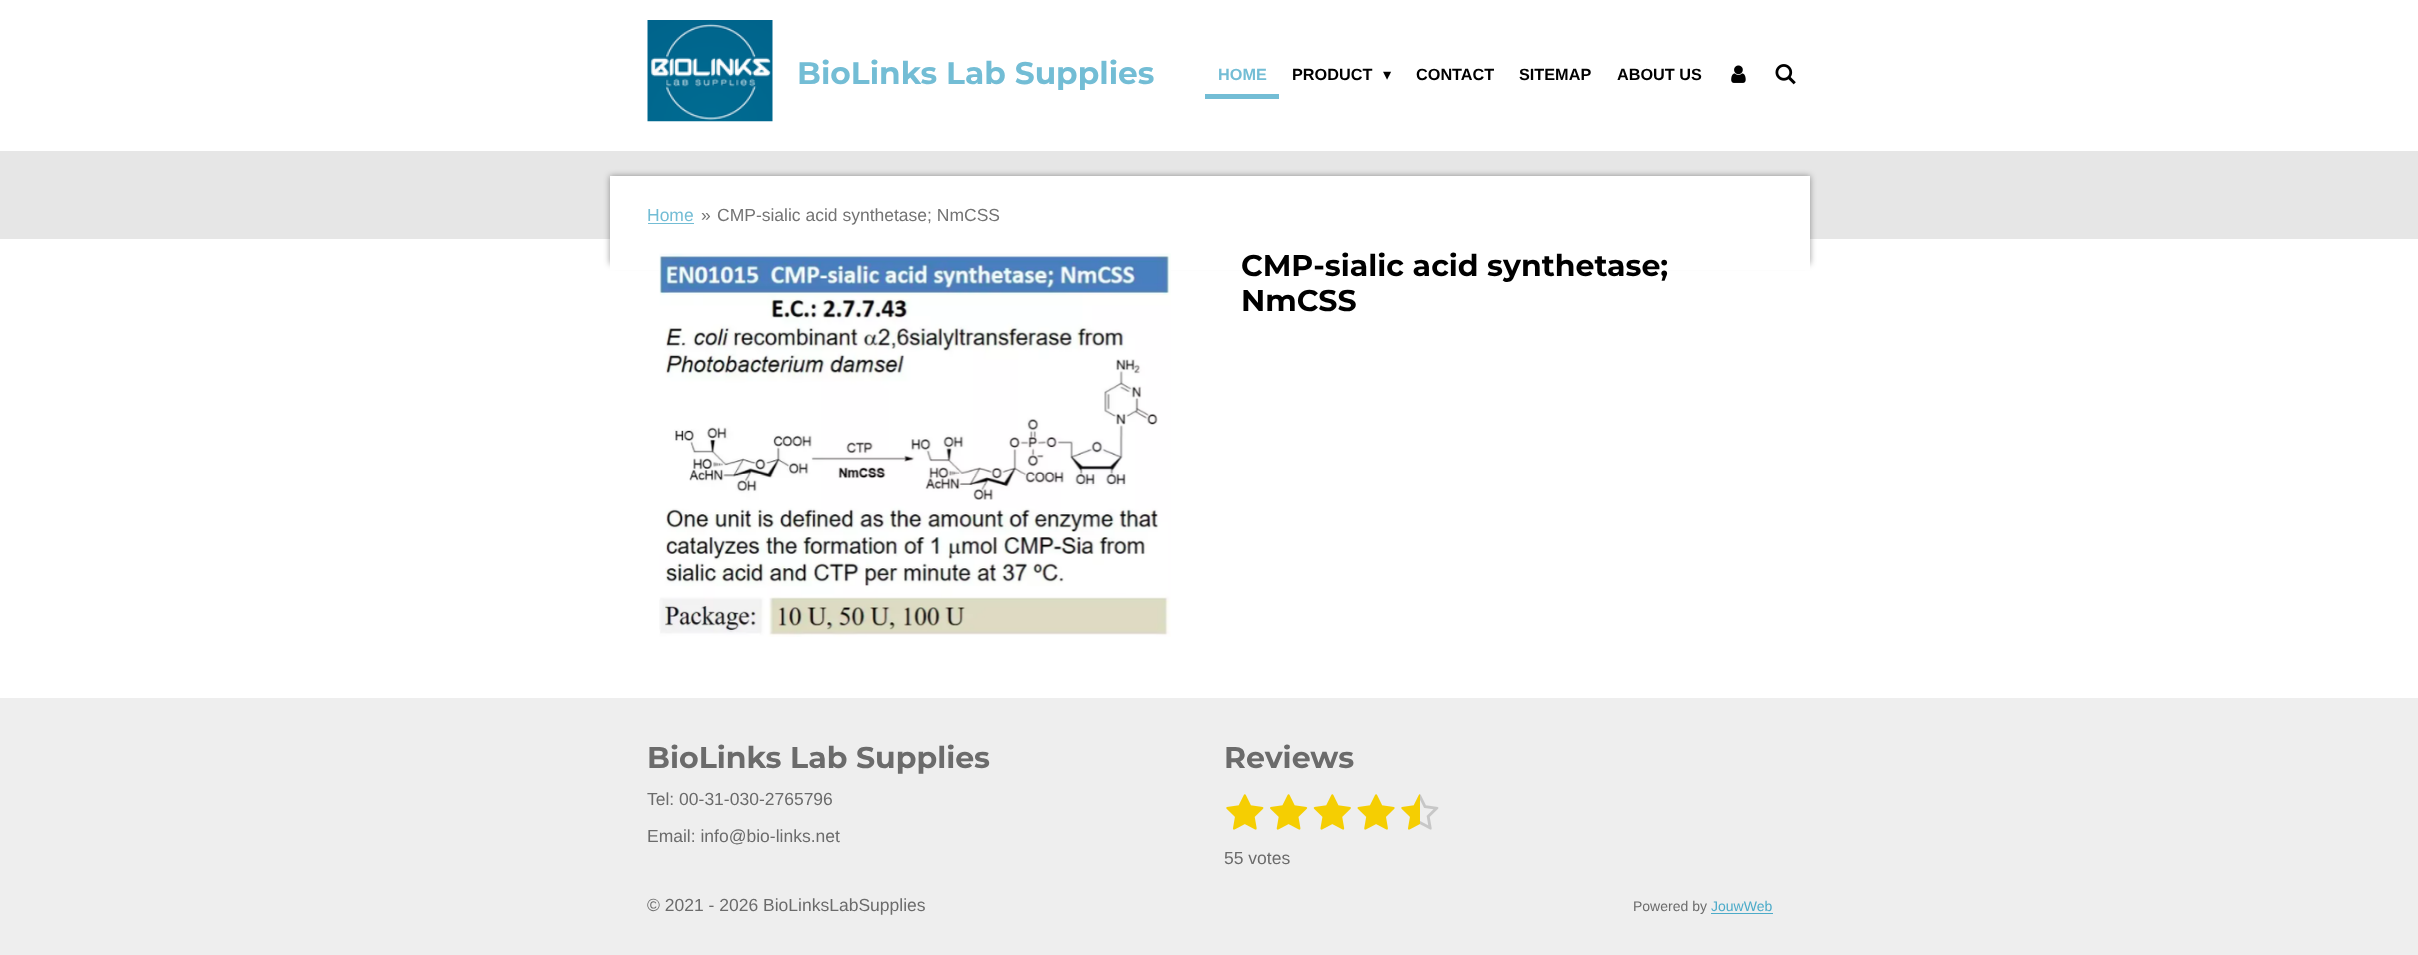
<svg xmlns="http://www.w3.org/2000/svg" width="2418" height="955">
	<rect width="100%" height="100%" fill="#FFFFFF" />
	<image x="647" y="20" width="126" height="102" href="assets/img1.png" />
	<text x="797" y="84" font-family="Montserrat" font-size="31.25" font-weight="700" fill="#73BDD5">BioLinks Lab Supplies</text>
	<rect x="1205" y="94" width="74" height="5" fill="#73BDD5" />
	<text x="1218" y="80" font-family="Liberation Sans" font-size="16.25" font-weight="700" fill="#73BDD5">HOME</text>
	<text x="1292" y="80" font-family="Liberation Sans" font-size="16.25" font-weight="700" fill="#000000">PRODUCT</text>
	<text x="1383" y="80" font-family="DejaVu Sans" font-size="16.25" fill="#000000">▾</text>
	<g font-family="Liberation Sans" font-size="16.25" font-weight="700" fill="#000000">
		<text x="1416" y="80">CONTACT</text>
		<text x="1519" y="80">SITEMAP</text>
		<text x="1617" y="80">ABOUT US</text>
	</g>
	<image x="1731" y="65" width="15" height="18" href="assets/img2.png" />
	<image x="1775" y="64" width="21" height="21" href="assets/img3.png" />
	<rect x="0" y="151" width="2418" height="88" fill="#E6E6E6" />
	<rect x="610" y="176" width="1200" height="88" fill="#000000" fill-opacity="0.4" filter="blur(3px)" />
	<rect x="610" y="176" width="1200" height="94" fill="#FFFFFF" />
	<text x="647" y="221" font-family="Liberation Sans" font-size="17.5" fill="#73BDD5">Home</text>
	<rect x="648" y="223" width="46" height="1" fill="#73BDD5" />
	<g font-family="Liberation Sans" font-size="17.5" fill="#737373">
		<text x="701" y="221">»</text>
		<text x="717" y="221">CMP-sialic acid synthetase; NmCSS</text>
	</g>
	<image x="659" y="253" width="512" height="384" href="assets/img4.png" />
	<g font-family="Montserrat" font-size="30" font-weight="700" fill="#000000">
		<text x="1241" y="276">CMP-sialic acid synthetase;</text>
		<text x="1241" y="311">NmCSS</text>
	</g>
	<rect x="0" y="698" width="2418" height="257" fill="#EEEEEE" />
	<text x="647" y="768" font-family="Montserrat" font-size="30" font-weight="700" fill="#6B6B6B">BioLinks Lab Supplies</text>
	<g font-family="Liberation Sans" font-size="17.5" fill="#6B6B6B">
		<text x="647" y="805">Tel: 00-31-030-2765796</text>
		<text x="647" y="842">Email: info@bio-links.net</text>
	</g>
	<text x="1224" y="768" font-family="Montserrat" font-size="30" font-weight="700" fill="#6B6B6B">Reviews</text>
	<image x="1226" y="794" width="38" height="36" href="assets/img5.png" />
	<image x="1270" y="794" width="38" height="36" href="assets/img6.png" />
	<image x="1313" y="794" width="38" height="36" href="assets/img7.png" />
	<image x="1357" y="794" width="38" height="36" href="assets/img8.png" />
	<image x="1401" y="794" width="19" height="36" href="assets/img9.png" />
	<image x="1420" y="794" width="19" height="36" href="assets/img10.png" />
	<g font-family="Liberation Sans" font-size="17.5" fill="#6B6B6B">
		<text x="1224" y="864">55 votes</text>
		<text x="647" y="911">© 2021 - 2026 BioLinksLabSupplies</text>
	</g>
	<text x="1633" y="911" font-family="Liberation Sans" font-size="14" fill="#6B6B6B">Powered by</text>
	<text x="1711" y="911" font-family="Liberation Sans" font-size="14" fill="#4CABC9">JouwWeb</text>
	<rect x="1711" y="913" width="62" height="1" fill="#4CABC9" />
</svg>
